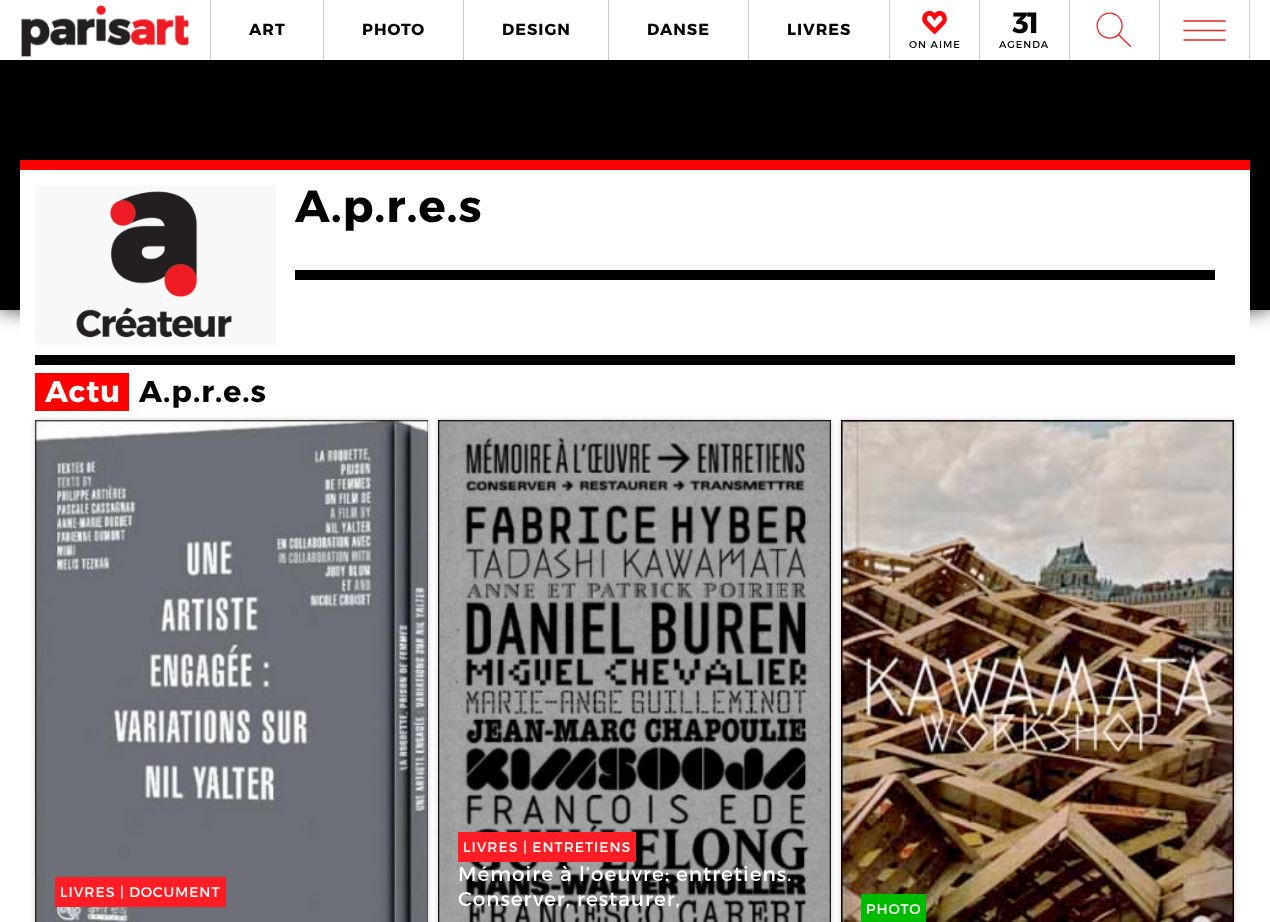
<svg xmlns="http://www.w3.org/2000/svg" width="1270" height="922">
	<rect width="100%" height="100%" fill="#FFFFFF" />
	<rect x="0" y="60" width="1270" height="250" fill="#000000" fill-opacity="0.75" filter="blur(10px)" />
	<rect x="0" y="38" width="1270" height="22" fill="#FFFFFF" />
	<image x="21" y="5" width="168" height="52" href="assets/img1.png" />
	<rect x="323" y="0" width="1" height="60" fill="#CCCCCC" />
	<rect x="210" y="0" width="1" height="60" fill="#CCCCCC" />
	<text x="249" y="35" font-family="Montserrat" font-size="16" font-weight="700" letter-spacing="1" fill="#000000">ART</text>
	<rect x="463" y="0" width="1" height="60" fill="#CCCCCC" />
	<text x="362" y="35" font-family="Montserrat" font-size="16" font-weight="700" letter-spacing="1" fill="#000000">PHOTO</text>
	<rect x="608" y="0" width="1" height="60" fill="#CCCCCC" />
	<text x="502" y="35" font-family="Montserrat" font-size="16" font-weight="700" letter-spacing="1" fill="#000000">DESIGN</text>
	<rect x="748" y="0" width="1" height="60" fill="#CCCCCC" />
	<text x="647" y="35" font-family="Montserrat" font-size="16" font-weight="700" letter-spacing="1" fill="#000000">DANSE</text>
	<rect x="889" y="0" width="1" height="60" fill="#CCCCCC" />
	<text x="787" y="35" font-family="Montserrat" font-size="16" font-weight="700" letter-spacing="1" fill="#000000">LIVRES</text>
	<rect x="1159" y="0" width="1" height="60" fill="#CCCCCC" />
	<text x="1089" y="55" font-family="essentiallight" font-size="50" font-weight="300" letter-spacing="1" fill="#EC2227">W</text>
	<rect x="1249" y="0" width="1" height="60" fill="#CCCCCC" />
	<text x="1172" y="63" font-family="essentiallight" font-size="65" font-weight="300" fill="#EC2227">m</text>
	<rect x="979" y="0" width="1" height="60" fill="#CCCCCC" />
	<image x="922" y="10" width="25" height="25" href="assets/img2.png" />
	<text x="909" y="48" font-family="Montserrat" font-size="10" letter-spacing="1" fill="#000000">ON AIME</text>
	<rect x="1069" y="0" width="1" height="60" fill="#CCCCCC" />
	<image x="1012" y="12" width="25" height="22" href="assets/img3.png" />
	<text x="999" y="48" font-family="Montserrat" font-size="10" letter-spacing="1" fill="#000000">AGENDA</text>
	<rect x="0" y="60" width="1270" height="250" fill="#000000" />
	<rect x="20" y="170" width="1230" height="162" fill="#FFFFFF" />
	<rect x="20" y="160" width="1230" height="10" fill="#FF0000" />
	<image x="35" y="185" width="240" height="160" href="assets/img4.png" />
	<text x="295" y="222" font-family="Montserrat" font-size="45" font-weight="700" letter-spacing="1" fill="#000000">A.p.r.e.s</text>
	<rect x="295" y="270" width="920" height="10" fill="#000000" />
	<rect x="35" y="355" width="1200" height="10" fill="#000000" />
	<rect x="35" y="373" width="94" height="38" fill="#FF0000" />
	<text x="45" y="402" font-family="Montserrat" font-size="30" font-weight="700" letter-spacing="1" fill="#FFFFFF">Actu</text>
	<text x="139" y="402" font-family="Montserrat" font-size="30" font-weight="700" letter-spacing="1" fill="#000000">A.p.r.e.s</text>
	<rect x="35" y="420" width="393" height="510" fill="#000000" fill-opacity="0.2" filter="blur(2.5px)" />
	<image x="35" y="420" width="393" height="502" href="assets/img5.png" />
	<rect x="55" y="877" width="171" height="30" fill="#FF1D25" />
	<text x="60" y="897" font-family="Montserrat" font-size="14" letter-spacing="1" fill="#FFFFFF">LIVRES | DOCUMENT</text>
	<rect x="438" y="420" width="393" height="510" fill="#000000" fill-opacity="0.2" filter="blur(2.5px)" />
	<image x="438" y="420" width="393" height="502" href="assets/img6.png" />
	<rect x="458" y="832" width="178" height="30" fill="#FF1D25" />
	<text x="463" y="852" font-family="Montserrat" font-size="14" letter-spacing="1" fill="#FFFFFF">LIVRES | ENTRETIENS</text>
	<g font-family="Montserrat" font-size="20" letter-spacing="1" fill="#FFFFFF">
		<text x="458" y="881">Mémoire à l’oeuvre: entretiens.</text>
		<text x="458" y="906">Conserver, restaurer,</text>
	</g>
	<rect x="841" y="420" width="393" height="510" fill="#000000" fill-opacity="0.2" filter="blur(2.5px)" />
	<image x="841" y="420" width="393" height="502" href="assets/img7.png" />
	<rect x="861" y="894" width="65" height="28" fill="#00BB00" />
	<text x="866" y="914" font-family="Montserrat" font-size="14" letter-spacing="1" fill="#FFFFFF">PHOTO</text>
</svg>
